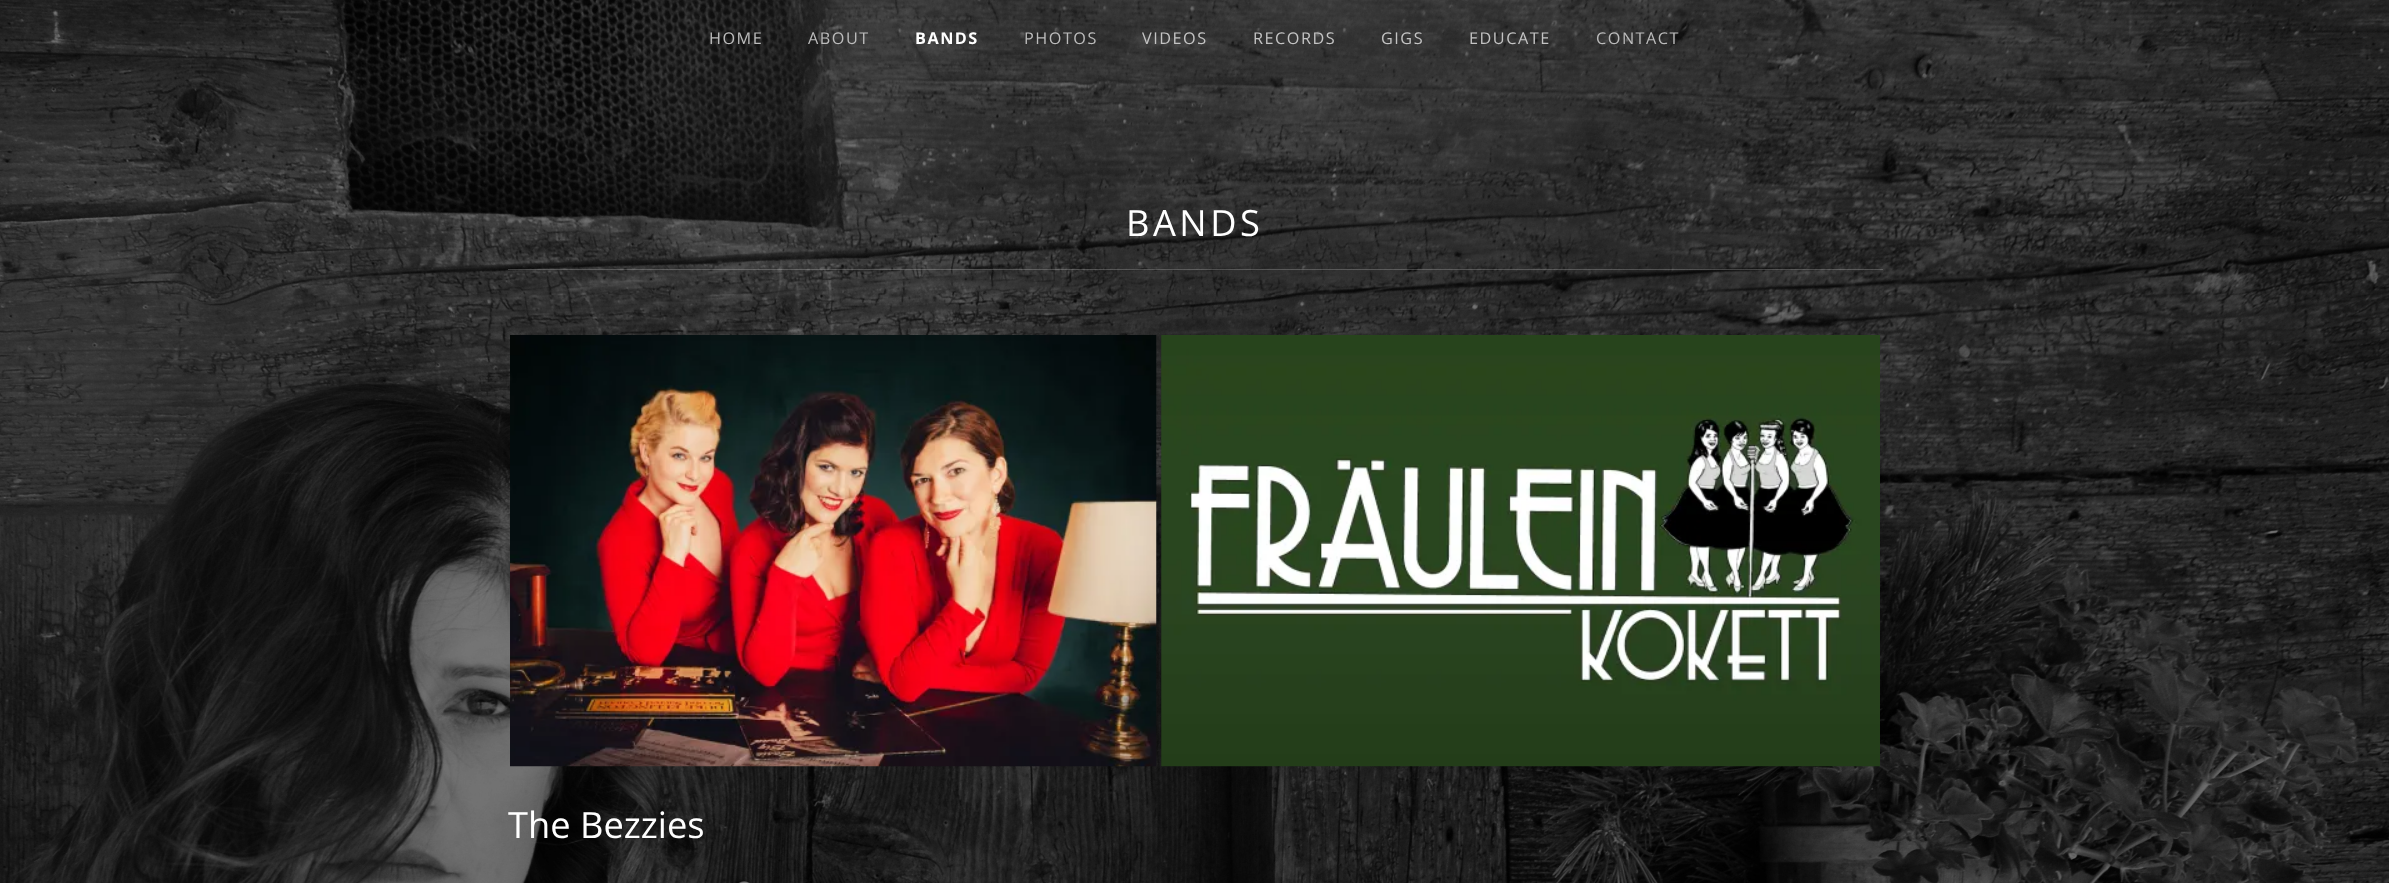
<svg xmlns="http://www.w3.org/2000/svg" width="2389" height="883">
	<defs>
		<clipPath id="clip1"><rect x="508" y="175" width="1375" height="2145" /></clipPath>
	</defs>
	<rect width="100%" height="100%" fill="#FFFFFF" />
	<image x="0" y="0" width="2389" height="883" href="assets/img1.png" />
	<g font-family="Open Sans" font-size="16.25" letter-spacing="1.5" fill="#BCBCBC">
		<text x="709" y="44">HOME</text>
		<text x="808" y="44">ABOUT</text>
	</g>
	<text x="915" y="44" font-family="Open Sans" font-size="16.25" font-weight="700" letter-spacing="1.5" fill="#FFFFFF">BANDS</text>
	<text x="1024" y="44" font-family="Open Sans" font-size="16.25" letter-spacing="1.5" fill="#BCBCBC">PHOTOS</text>
	<g font-family="Open Sans" font-size="16.25" letter-spacing="1.5" fill="#C4C4C4">
		<text x="1142" y="44">VIDEOS</text>
		<text x="1253" y="44">RECORDS</text>
		<text x="1381" y="44">GIGS</text>
		<text x="1469" y="44">EDUCATE</text>
	</g>
	<text x="1596" y="44" font-family="Open Sans" font-size="16.25" letter-spacing="1.5" fill="#BCBCBC">CONTACT</text>
	<rect x="508" y="269" width="1375" height="1" fill="#FFFFFF" fill-opacity="0.2" />
	<text x="1126" y="236" font-family="Open Sans" font-size="36.25" letter-spacing="3.5" fill="#FFFFFF">BANDS</text>
	<image x="510" y="335" width="647" height="432" href="assets/img2.png" />
	<image x="1161" y="335" width="719" height="432" href="assets/img3.png" />
	<g clip-path="url(#clip1)">
		<text x="508" y="838" font-family="Open Sans" font-size="36.25" fill="#FFFFFF">The Bezzies</text>
	</g>
</svg>
